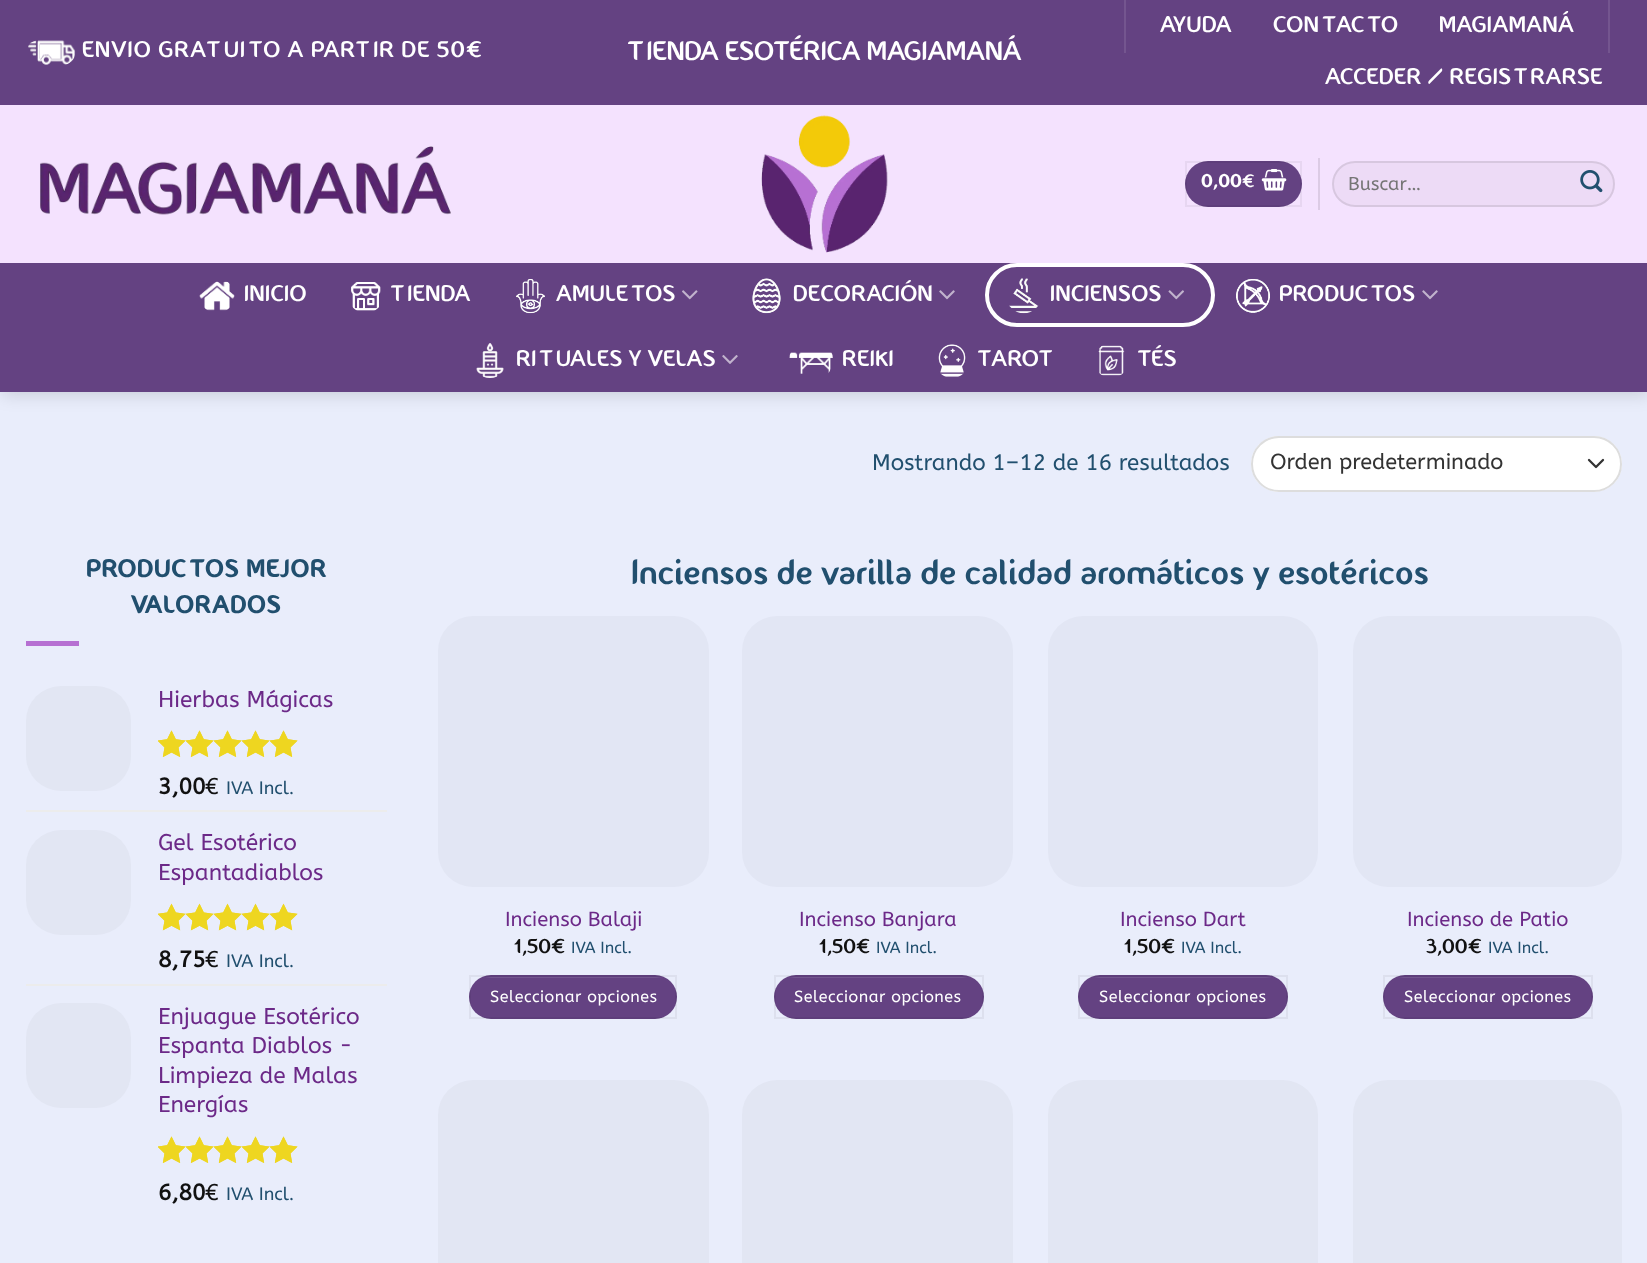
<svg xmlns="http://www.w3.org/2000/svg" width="1647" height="1263">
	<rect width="100%" height="100%" fill="#E9EDFB" />
	<rect x="2" y="2" width="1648" height="392" fill="#000000" fill-opacity="0.15" filter="blur(9px)" />
	<rect x="0" y="0" width="1647" height="105" fill="#644282" />
	<image x="28" y="40" width="48" height="25" href="assets/img1.png" />
	<text x="82" y="57" font-family="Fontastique" font-size="22.75" letter-spacing="1.15" fill="#FFFFFF">ENVIO GRATUITO A PARTIR DE 50€</text>
	<text x="628" y="60" font-family="Fontastique" font-size="26.9" fill="#FFFFFF">TIENDA ESOTÉRICA MAGIAMANÁ</text>
	<rect x="1124" y="0" width="2" height="53" fill="#74558F" />
	<g font-family="Fontastique" font-size="22.75" letter-spacing="0.5" fill="#FFFFFF">
		<text x="1160" y="32">AYUDA</text>
		<text x="1273" y="32">CONTACTO</text>
		<text x="1439" y="32">MAGIAMANÁ</text>
	</g>
	<rect x="1608" y="0" width="2" height="53" fill="#74558F" />
	<text x="1325" y="84" font-family="Fontastique" font-size="22.75" letter-spacing="0.5" fill="#FFFFFF">ACCEDER / REGISTRARSE</text>
	<rect x="0" y="105" width="1647" height="158" fill="#F4E2FE" />
	<image x="40" y="146" width="411" height="69" href="assets/img2.png" />
	<image x="761" y="115" width="127" height="138" href="assets/img3.png" />
	<rect x="1185" y="161" width="117" height="46" rx="23" fill="#644282" />
	<rect x="1186" y="162" width="115" height="44" fill="none" stroke="#000000" stroke-opacity="0.05" stroke-width="2" />
	<text x="1201" y="187" font-family="Fontastique" font-size="18" font-weight="700" letter-spacing="0.5" fill="#FFFFFF">0,00</text>
	<text x="1242" y="187" font-family="Fontastique" font-size="18" letter-spacing="0.5" fill="#FFFFFF">€</text>
	<image x="1261" y="169" width="26" height="22" href="assets/img4.png" />
	<rect x="1318" y="158" width="2" height="52" fill="#DCCBE5" />
	<rect x="1332" y="161" width="283" height="46" rx="23" fill="#EDDBF6" />
	<rect x="1333" y="162" width="281" height="44" rx="22" fill="none" stroke="#000000" stroke-opacity="0.09" stroke-width="2" />
	<text x="1348" y="190" font-family="ABeeZee" font-size="18.5" fill="#757575">Buscar…</text>
	<image x="1580" y="170" width="23" height="23" href="assets/img5.png" />
	<rect x="0" y="263" width="1647" height="129" fill="#644282" />
	<image x="199" y="281" width="36" height="30" href="assets/img6.png" />
	<text x="244" y="301" font-family="Fontastique" font-size="22.75" letter-spacing="0.5" fill="#FFFFFF">INICIO</text>
	<image x="351" y="282" width="30" height="29" href="assets/img7.png" />
	<text x="391" y="301" font-family="Fontastique" font-size="22.75" letter-spacing="0.5" fill="#FFFFFF">TIENDA</text>
	<image x="516" y="279" width="29" height="35" href="assets/img8.png" />
	<text x="556" y="301" font-family="Fontastique" font-size="22.75" letter-spacing="0.5" fill="#FFFFFF">AMULETOS</text>
	<image x="682" y="290" width="16" height="10" href="assets/img9.png" />
	<image x="752" y="278" width="29" height="36" href="assets/img10.png" />
	<text x="793" y="301" font-family="Fontastique" font-size="22.75" letter-spacing="0.5" fill="#FFFFFF">DECORACIÓN</text>
	<image x="939" y="290" width="16" height="10" href="assets/img11.png" />
	<rect x="987" y="265" width="226" height="60" rx="30" fill="none" stroke="#FFFFFF" stroke-width="4" />
	<image x="1009" y="278" width="30" height="36" href="assets/img12.png" />
	<text x="1050" y="301" font-family="Fontastique" font-size="22.75" letter-spacing="0.5" fill="#FFFFFF">INCIENSOS</text>
	<image x="1168" y="290" width="16" height="10" href="assets/img13.png" />
	<image x="1236" y="279" width="34" height="34" href="assets/img14.png" />
	<text x="1279" y="301" font-family="Fontastique" font-size="22.75" letter-spacing="0.5" fill="#FFFFFF">PRODUCTOS</text>
	<image x="1422" y="290" width="16" height="10" href="assets/img11.png" />
	<image x="476" y="343" width="28" height="35" href="assets/img15.png" />
	<text x="516" y="366" font-family="Fontastique" font-size="22.75" letter-spacing="0.5" fill="#FFFFFF">RITUALES Y VELAS</text>
	<image x="722" y="355" width="16" height="9" href="assets/img16.png" />
	<image x="789" y="352" width="44" height="22" href="assets/img17.png" />
	<text x="842" y="366" font-family="Fontastique" font-size="22.75" letter-spacing="0.5" fill="#FFFFFF">REIKI</text>
	<image x="938" y="344" width="28" height="33" href="assets/img18.png" />
	<text x="978" y="366" font-family="Fontastique" font-size="22.75" letter-spacing="0.5" fill="#FFFFFF">TAROT</text>
	<image x="1098" y="345" width="27" height="31" href="assets/img19.png" />
	<text x="1138" y="366" font-family="Fontastique" font-size="22.75" letter-spacing="0.5" fill="#FFFFFF">TÉS</text>
	<text x="872" y="470" font-family="ABeeZee" font-size="22.4" fill="#214F6E">Mostrando 1–12 de 16 resultados</text>
	<rect x="1251" y="436" width="371" height="56" rx="28" fill="#FFFFFF" />
	<path d="M1589 460L1596 467L1603 460" fill="none" stroke="#333333" stroke-width="2.3" stroke-linecap="round" stroke-linejoin="round" />
	<rect x="1252" y="437" width="369" height="54" rx="27" fill="none" stroke="#DDDDDD" stroke-width="2" />
	<text x="1270" y="469" font-family="ABeeZee" font-size="21.75" fill="#333333">Orden predeterminado</text>
	<g font-family="Fontastique" font-size="24.5" font-weight="700" letter-spacing="1.25" fill="#214F6E">
		<text x="86" y="577">PRODUCTOS MEJOR</text>
		<text x="131" y="613">VALORADOS</text>
	</g>
	<rect x="26" y="641" width="53" height="5" fill="#B670D2" />
	<rect x="26" y="686" width="105" height="105" rx="35" fill="#E2E6F3" />
	<text x="158" y="707" font-family="ABeeZee" font-size="22.75" fill="#6C2988">Hierbas Mágicas</text>
	<image x="158" y="730" width="140" height="27" href="assets/img20.png" />
	<image x="158" y="730" width="140" height="27" href="assets/img21.png" />
	<text x="158" y="794" font-family="ABeeZee" font-size="22.75" font-weight="700" fill="#111111">3,00</text>
	<text x="205" y="794" font-family="ABeeZee" font-size="22.75" fill="#111111">€</text>
	<text x="226" y="794" font-family="ABeeZee" font-size="18" fill="#214F6E">IVA Incl.</text>
	<rect x="26" y="810" width="361" height="2" fill="#ECECEC" />
	<rect x="26" y="830" width="105" height="105" rx="35" fill="#E2E6F3" />
	<g font-family="ABeeZee" font-size="22.75" fill="#6C2988">
		<text x="158" y="850">Gel Esotérico</text>
		<text x="158" y="880">Espantadiablos</text>
	</g>
	<image x="158" y="903" width="140" height="28" href="assets/img22.png" />
	<image x="158" y="903" width="140" height="28" href="assets/img23.png" />
	<text x="158" y="967" font-family="ABeeZee" font-size="22.75" font-weight="700" fill="#111111">8,75</text>
	<text x="205" y="967" font-family="ABeeZee" font-size="22.75" fill="#111111">€</text>
	<text x="226" y="967" font-family="ABeeZee" font-size="18" fill="#214F6E">IVA Incl.</text>
	<rect x="26" y="984" width="361" height="2" fill="#ECECEC" />
	<rect x="26" y="1003" width="105" height="105" rx="35" fill="#E2E6F3" />
	<g font-family="ABeeZee" font-size="22.75" fill="#6C2988">
		<text x="158" y="1024">Enjuague Esotérico</text>
		<text x="158" y="1053">Espanta Diablos -</text>
		<text x="158" y="1083">Limpieza de Malas</text>
		<text x="158" y="1112">Energías</text>
	</g>
	<image x="158" y="1136" width="140" height="27" href="assets/img20.png" />
	<image x="158" y="1136" width="140" height="27" href="assets/img21.png" />
	<text x="158" y="1200" font-family="ABeeZee" font-size="22.75" font-weight="700" fill="#111111">6,80</text>
	<text x="205" y="1200" font-family="ABeeZee" font-size="22.75" fill="#111111">€</text>
	<text x="226" y="1200" font-family="ABeeZee" font-size="18" fill="#214F6E">IVA Incl.</text>
	<text x="631" y="584" font-family="Fontastique" font-size="35.8" fill="#214F6E">Inciensos de varilla de calidad aromáticos y esotéricos</text>
	<rect x="438" y="616" width="271" height="271" rx="35" fill="#E2E6F4" />
	<text x="505" y="926" font-family="ABeeZee" font-size="20.25" fill="#6C2988">Incienso Balaji</text>
	<text x="514" y="953" font-family="Fontastique" font-size="20.25" fill="#111111">1,50€</text>
	<text x="571" y="953" font-family="ABeeZee" font-size="16.1" fill="#214F6E">IVA Incl.</text>
	<rect x="469" y="975" width="208" height="44" rx="22" fill="#644282" />
	<rect x="470" y="976" width="206" height="42" fill="none" stroke="#000000" stroke-opacity="0.05" stroke-width="2" />
	<path d="M491 977L485 978H662L656 977Z" fill="#73558E" />
	<text x="490" y="1002" font-family="ABeeZee" font-size="16.1" letter-spacing="0.5" fill="#FFFFFF">Seleccionar opciones</text>
	<rect x="742" y="616" width="271" height="271" rx="35" fill="#E2E6F4" />
	<text x="799" y="926" font-family="ABeeZee" font-size="20.25" fill="#6C2988">Incienso Banjara</text>
	<text x="819" y="953" font-family="Fontastique" font-size="20.25" fill="#111111">1,50€</text>
	<text x="876" y="953" font-family="ABeeZee" font-size="16.1" fill="#214F6E">IVA Incl.</text>
	<rect x="774" y="975" width="210" height="44" rx="22" fill="#644282" />
	<rect x="775" y="976" width="208" height="42" fill="none" stroke="#000000" stroke-opacity="0.05" stroke-width="2" />
	<path d="M795 977L789 978H968L962 977Z" fill="#73558E" />
	<text x="794" y="1002" font-family="ABeeZee" font-size="16.1" letter-spacing="0.5" fill="#FFFFFF">Seleccionar opciones</text>
	<rect x="1048" y="616" width="270" height="271" rx="35" fill="#E2E6F4" />
	<text x="1120" y="926" font-family="ABeeZee" font-size="20.25" fill="#6C2988">Incienso Dart</text>
	<text x="1124" y="953" font-family="Fontastique" font-size="20.25" fill="#111111">1,50€</text>
	<text x="1181" y="953" font-family="ABeeZee" font-size="16.1" fill="#214F6E">IVA Incl.</text>
	<rect x="1078" y="975" width="210" height="44" rx="22" fill="#644282" />
	<rect x="1079" y="976" width="208" height="42" fill="none" stroke="#000000" stroke-opacity="0.05" stroke-width="2" />
	<path d="M1100 977L1094 978H1272L1266 977Z" fill="#73558E" />
	<text x="1099" y="1002" font-family="ABeeZee" font-size="16.1" letter-spacing="0.5" fill="#FFFFFF">Seleccionar opciones</text>
	<rect x="1353" y="616" width="269" height="271" rx="35" fill="#E2E6F4" />
	<text x="1407" y="926" font-family="ABeeZee" font-size="20.25" fill="#6C2988">Incienso de Patio</text>
	<text x="1426" y="953" font-family="Fontastique" font-size="20.25" fill="#111111">3,00€</text>
	<text x="1488" y="953" font-family="ABeeZee" font-size="16.1" fill="#214F6E">IVA Incl.</text>
	<rect x="1383" y="975" width="210" height="44" rx="22" fill="#644282" />
	<rect x="1384" y="976" width="208" height="42" fill="none" stroke="#000000" stroke-opacity="0.05" stroke-width="2" />
	<path d="M1404 977L1398 978H1577L1571 977Z" fill="#73558E" />
	<text x="1404" y="1002" font-family="ABeeZee" font-size="16.1" letter-spacing="0.5" fill="#FFFFFF">Seleccionar opciones</text>
	<rect x="438" y="1080" width="271" height="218" rx="35" fill="#E2E6F3" />
	<rect x="742" y="1080" width="271" height="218" rx="35" fill="#E2E6F3" />
	<rect x="1048" y="1080" width="270" height="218" rx="35" fill="#E2E6F3" />
	<rect x="1353" y="1080" width="269" height="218" rx="35" fill="#E2E6F3" />
</svg>
